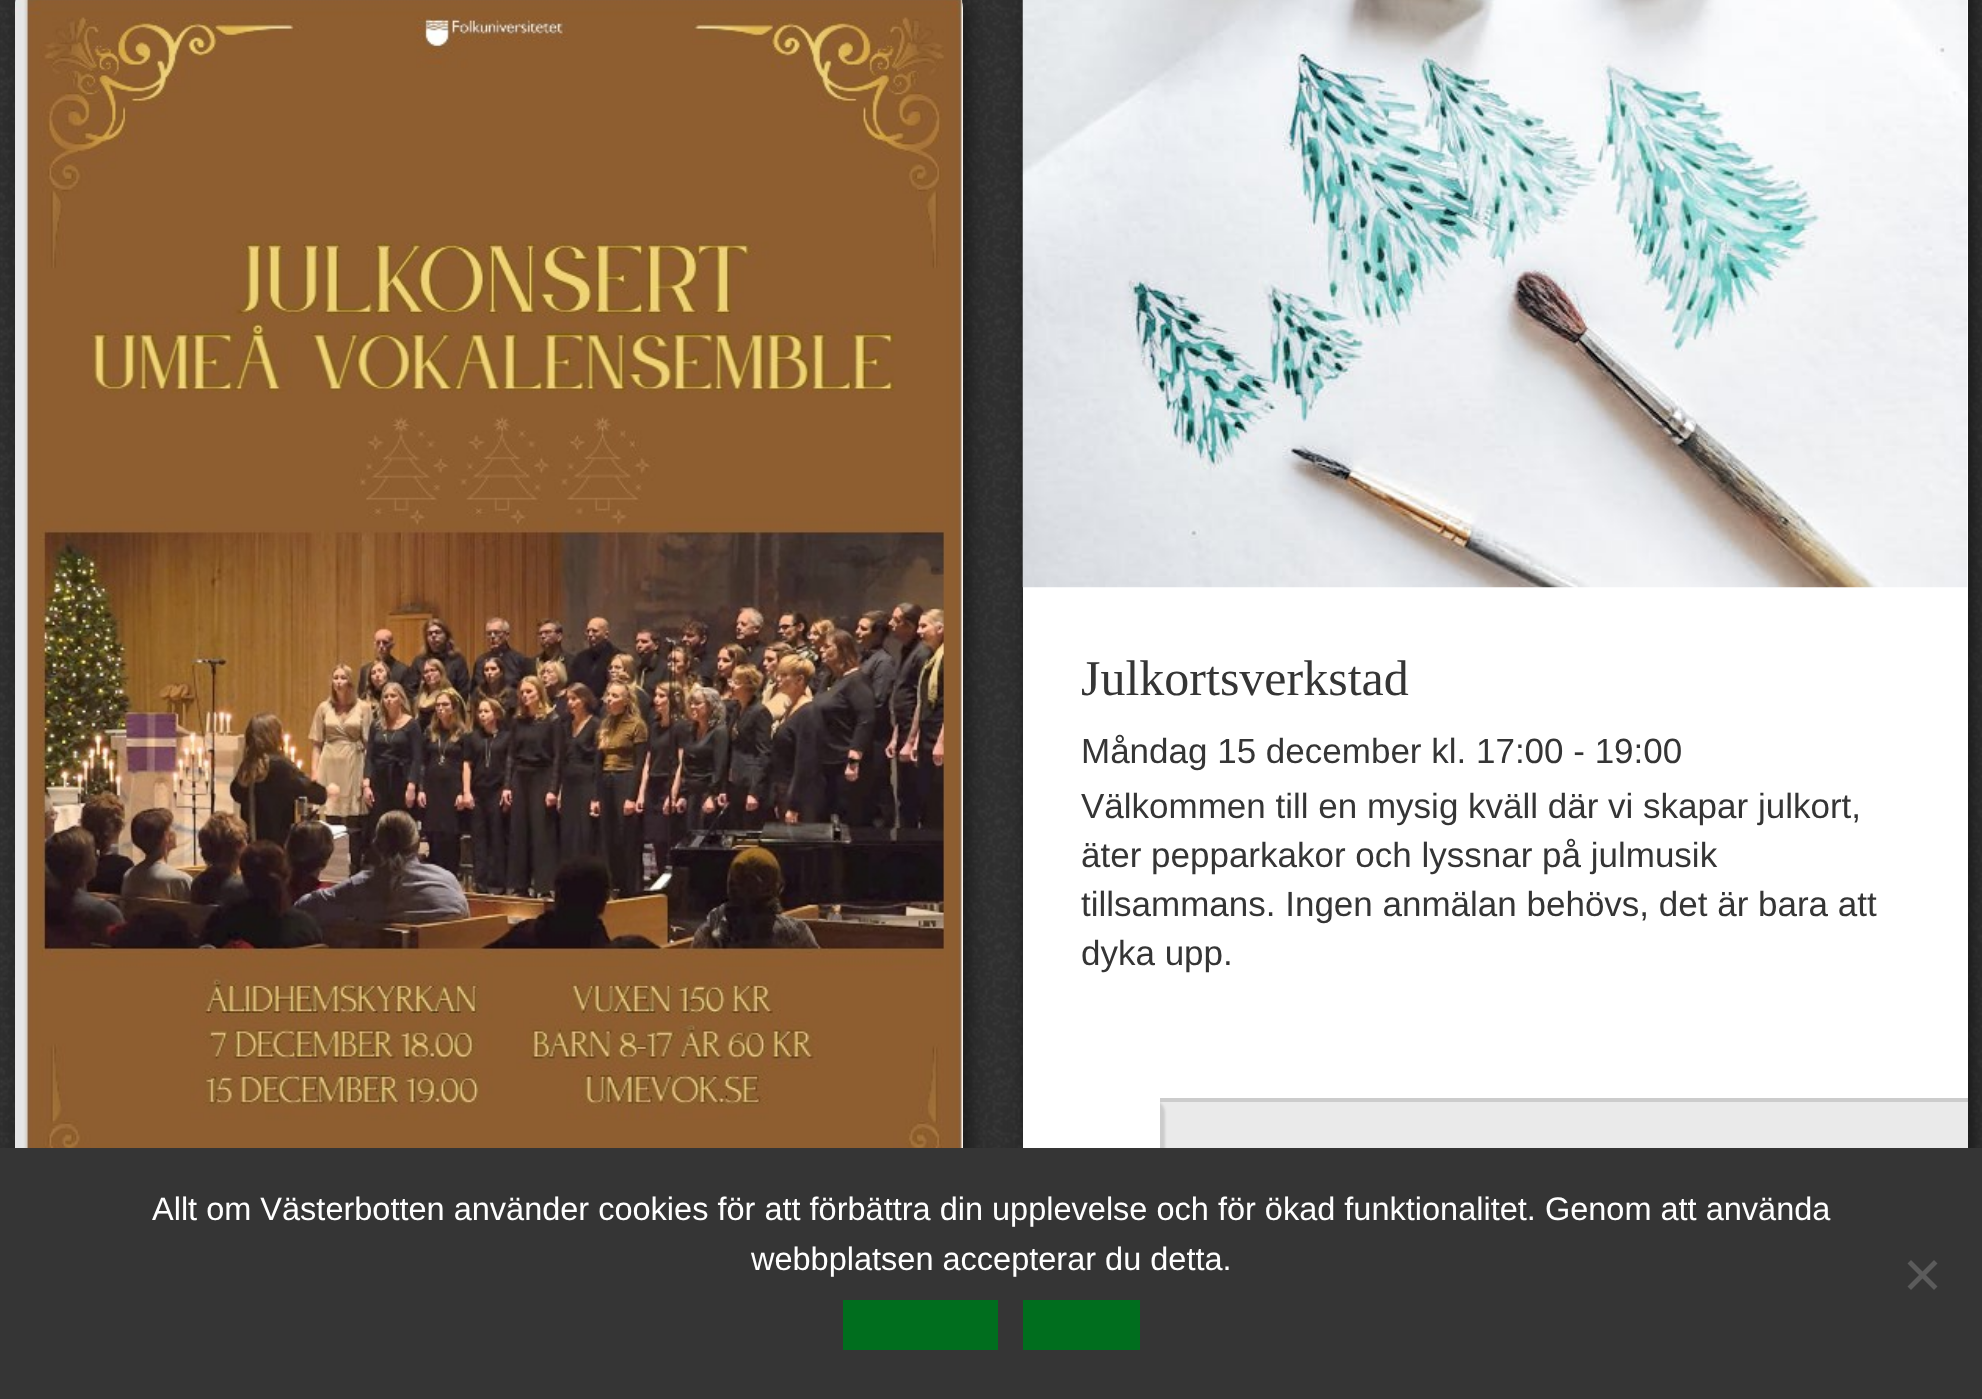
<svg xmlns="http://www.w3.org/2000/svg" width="1982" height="1399">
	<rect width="100%" height="100%" fill="#FFFFFF" />
	<image x="0" y="0" width="1982" height="1148" href="assets/img1.png" />
	<rect x="23" y="0" width="942" height="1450" rx="13" fill="#111111" filter="blur(12.5px)" />
	<rect x="15" y="-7" width="948" height="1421" rx="15" fill="#FFFFFF" />
	<image x="15" y="0" width="948" height="1148" href="assets/img2.png" />
	<rect x="1030" y="-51" width="940" height="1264" rx="13" fill="#111111" filter="blur(12.5px)" />
	<rect x="1023" y="0" width="945" height="1098" fill="#FFFFFF" />
	<image x="1022" y="0" width="946" height="588" href="assets/img3.png" />
	<text x="1081" y="695" font-family="Liberation Serif" font-size="50" fill="#353535">Julkortsverkstad</text>
	<g font-family="Liberation Sans" font-size="35" fill="#353535">
		<text x="1081" y="763">Måndag 15 december kl. 17:00 - 19:00</text>
		<text x="1081" y="818">Välkommen till en mysig kväll där vi skapar julkort,</text>
		<text x="1081" y="867">äter pepparkakor och lyssnar på julmusik</text>
		<text x="1081" y="916">tillsammans. Ingen anmälan behövs, det är bara att</text>
		<text x="1081" y="965">dyka upp.</text>
	</g>
	<rect x="1160" y="1102" width="808" height="46" fill="#EAEAEA" />
	<path d="M1028 1102H1968V1098H1023V1195C1023 1203 1030 1210 1038 1210H1040C1033 1210 1028 1204 1028 1198Z" fill="#CCCCCC" />
	<rect x="1033" y="1100" width="132" height="108" rx="13" fill="#CCCCCC" filter="blur(1px)" />
	<rect x="1023" y="1098" width="137" height="50" fill="#FFFFFF" />
	<rect x="0" y="1148" width="1982" height="251" fill="#353535" />
	<g font-family="Liberation Sans" font-size="32.5" fill="#FFFFFF">
		<text x="152" y="1220">Allt om Västerbotten använder cookies för att förbättra din upplevelse och för ökad funktionalitet. Genom att använda</text>
		<text x="751" y="1270">webbplatsen accepterar du detta.</text>
	</g>
	<path d="M1934 1260L1937.5 1263.5L1911 1290L1907.5 1286.5Z" fill="#5B5B5B" />
	<path d="M1907.5 1263.5L1911 1260L1937.5 1286.5L1934 1290Z" fill="#5B5B5B" />
	<rect x="843" y="1300" width="155" height="50" fill="#006E1E" />
	<rect x="1023" y="1300" width="117" height="50" fill="#006E1E" />
</svg>
